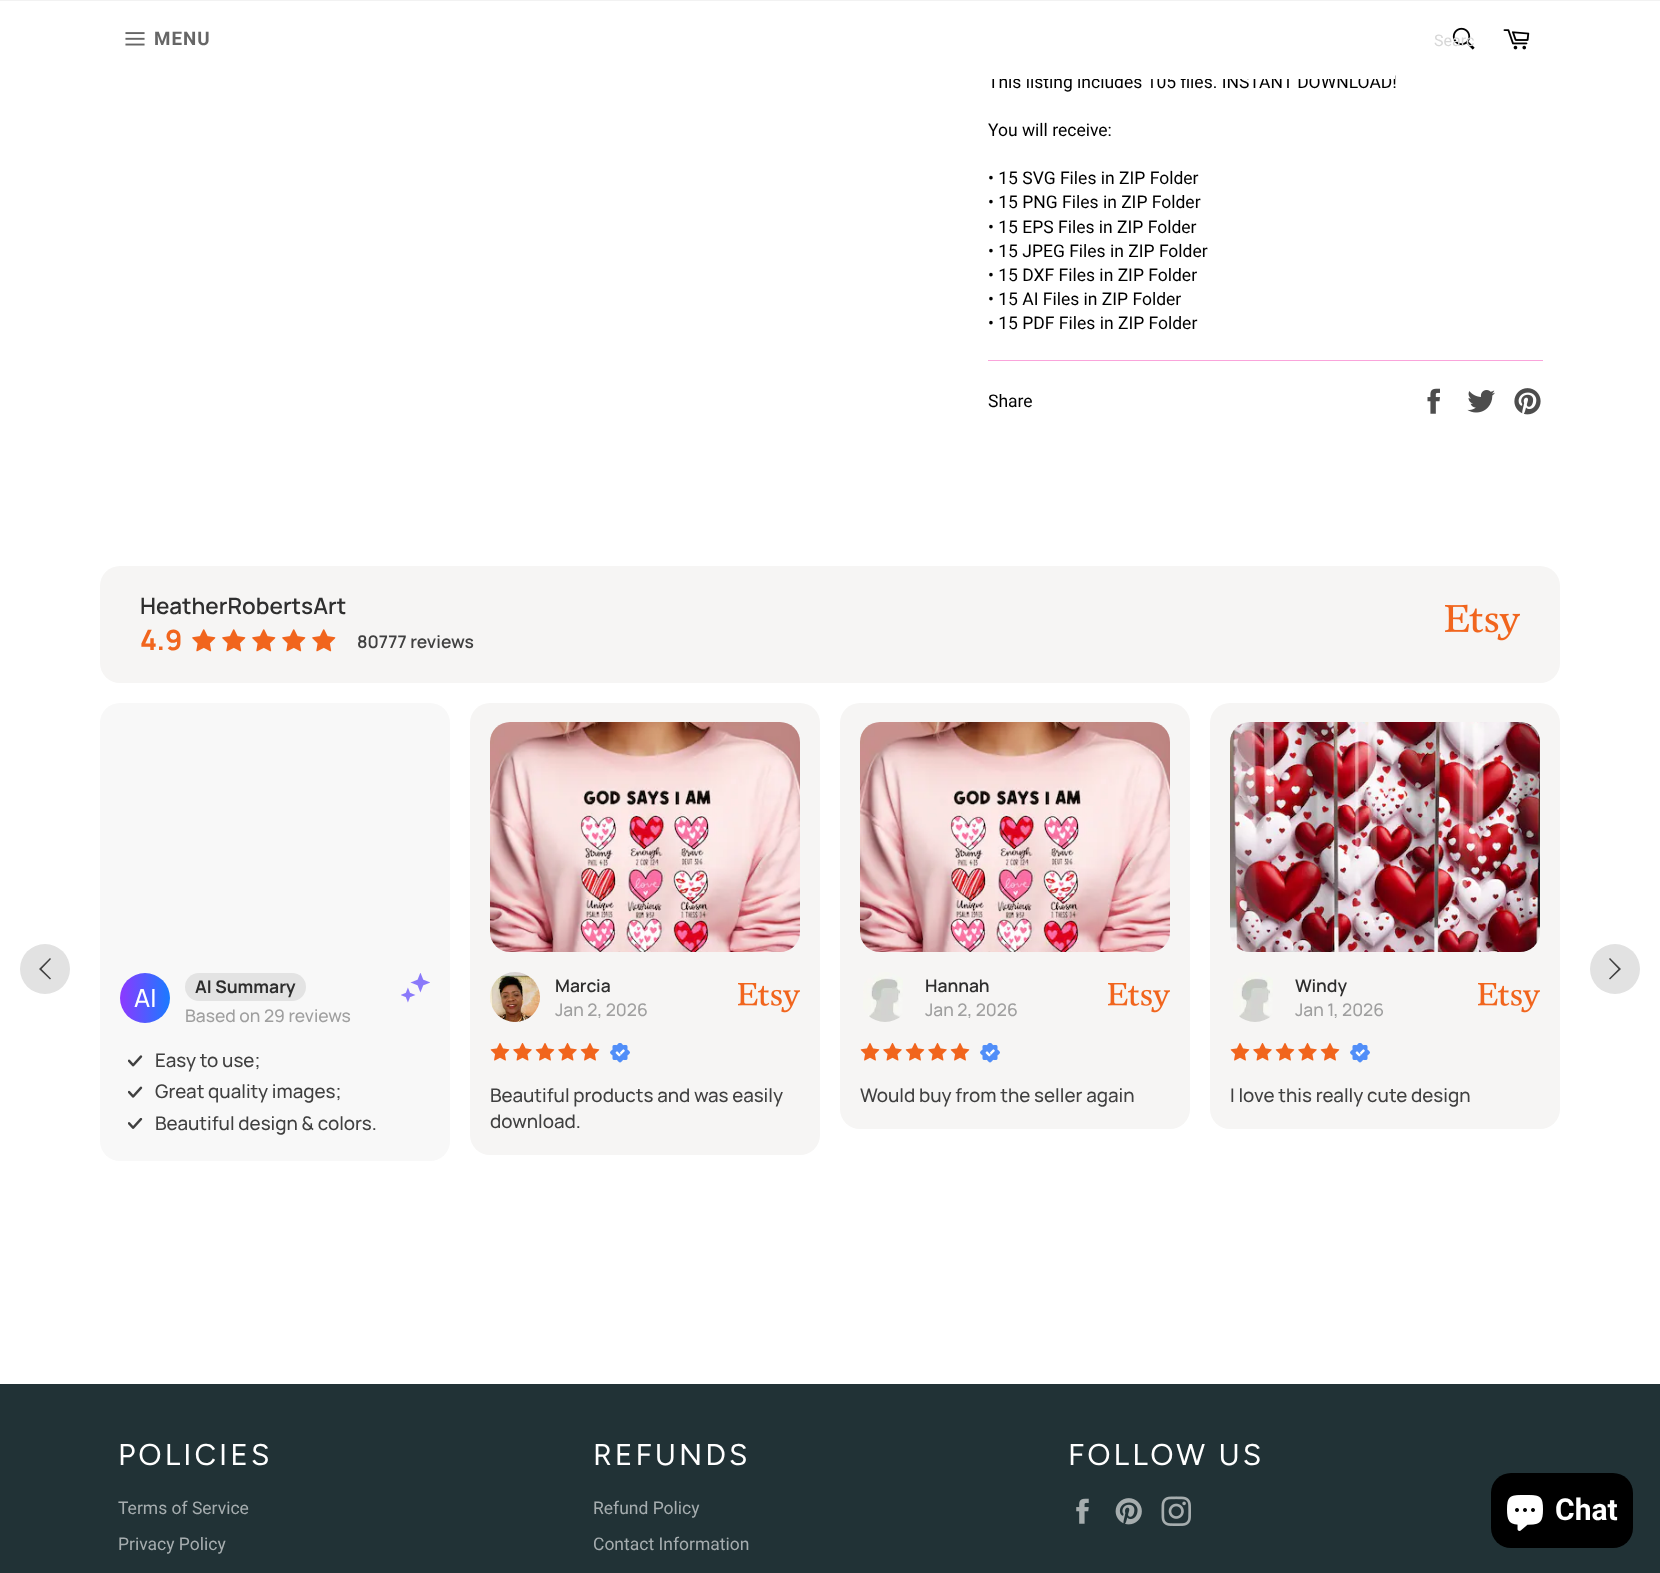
<svg xmlns="http://www.w3.org/2000/svg" width="1660" height="1573">
	<defs>
		<linearGradient id="g1" gradientUnits="userSpaceOnUse" x1="120" y1="998" x2="170" y2="998"><stop offset="0" stop-color="#8D38FF" /><stop offset="1" stop-color="#197BFF" /></linearGradient>
	</defs>
	<rect width="100%" height="100%" fill="#FFFFFF" />
	<text x="988" y="88" font-family="Roboto" font-size="17.5" fill="#000000">This listing includes 105 files. INSTANT DOWNLOAD!</text>
	<rect x="987" y="74" width="408" height="5" fill="#FFFFFF" />
	<rect x="0" y="0" width="1660" height="1" fill="#F2F2F2" />
	<image x="125" y="32" width="20" height="14" href="assets/img1.png" />
	<text x="154" y="45" font-family="Roboto" font-size="18.75" font-weight="700" letter-spacing="1" fill="#666666">MENU</text>
	<image x="1452" y="27" width="23" height="23" href="assets/img2.png" />
	<text x="1434" y="46" font-family="Roboto" font-size="16" fill="#D7D7D7">Searc</text>
	<image x="1503" y="29" width="27" height="21" href="assets/img3.png" />
	<g font-family="Roboto" font-size="17.5" fill="#000000">
		<text x="988" y="136">You will receive:</text>
		<text x="988" y="184">• 15 SVG Files in ZIP Folder</text>
		<text x="988" y="208">• 15 PNG Files in ZIP Folder</text>
		<text x="988" y="233">• 15 EPS Files in ZIP Folder</text>
		<text x="988" y="257">• 15 JPEG Files in ZIP Folder</text>
		<text x="988" y="281">• 15 DXF Files in ZIP Folder</text>
		<text x="988" y="305">• 15 AI Files in ZIP Folder</text>
		<text x="988" y="329">• 15 PDF Files in ZIP Folder</text>
	</g>
	<rect x="988" y="360" width="555" height="1" fill="#FAA4DB" />
	<text x="988" y="407" font-family="Roboto" font-size="17.5" fill="#000000">Share</text>
	<image x="1427" y="388" width="13" height="26" href="assets/img4.png" />
	<image x="1467" y="390" width="28" height="23" href="assets/img5.png" />
	<image x="1514" y="388" width="27" height="27" href="assets/img6.png" />
	<rect x="100" y="566" width="1460" height="117" rx="20" fill="#F6F5F4" />
	<text x="140" y="614" font-family="Manrope" font-size="22.5" font-weight="600" fill="#2E2E2E">HeatherRobertsArt</text>
	<text x="140" y="650" font-family="Manrope" font-size="28" font-weight="700" fill="#F1651D">4.9</text>
	<image x="192" y="629" width="24" height="23" href="assets/img7.png" />
	<image x="222" y="629" width="24" height="23" href="assets/img7.png" />
	<image x="252" y="629" width="24" height="23" href="assets/img7.png" />
	<image x="282" y="629" width="24" height="23" href="assets/img7.png" />
	<image x="312" y="629" width="24" height="23" href="assets/img7.png" />
	<text x="357" y="648" font-family="Manrope" font-size="17.5" font-weight="600" fill="#404040">80777 reviews</text>
	<image x="1445" y="604" width="75" height="37" href="assets/img8.png" />
	<circle cx="45" cy="969" r="25" fill="#E2E2E2" />
	<path d="M51 978.5L50 979.5L39 969L50 958L51 959L41.5 969Z" fill="#404040" />
	<circle cx="1615" cy="969" r="25" fill="#E2E2E2" />
	<path d="M1609 959L1610 958L1621 969L1610 979.5L1609 978.5L1618.5 969Z" fill="#404040" />
	<rect x="100" y="703" width="350" height="458" rx="20" fill="#F8F8F8" />
	<circle cx="145" cy="998" r="25" fill="url(#g1)" />
	<text x="134" y="1007" font-family="Manrope" font-size="25" font-weight="500" fill="#FFFFFF">AI</text>
	<rect x="185" y="973" width="121" height="28" rx="14" fill="#E3E3E3" />
	<text x="195" y="993" font-family="Manrope" font-size="17.5" font-weight="700" fill="#2E2E2E">AI Summary</text>
	<text x="185" y="1022" font-family="Manrope" font-size="17.5" font-weight="500" fill="#9F9F9F">Based on 29 reviews</text>
	<image x="401" y="973" width="29" height="30" href="assets/img9.png" />
	<image x="128" y="1055" width="15" height="12" href="assets/img10.png" />
	<text x="155" y="1067" font-family="Manrope" font-size="18.75" font-weight="500" fill="#404040">Easy to use;</text>
	<image x="128" y="1086" width="15" height="12" href="assets/img11.png" />
	<text x="155" y="1098" font-family="Manrope" font-size="18.75" font-weight="500" fill="#404040">Great quality images;</text>
	<image x="128" y="1118" width="15" height="11" href="assets/img12.png" />
	<text x="155" y="1130" font-family="Manrope" font-size="18.75" font-weight="500" fill="#404040">Beautiful design &amp; colors.</text>
	<rect x="470" y="703" width="350" height="452" rx="20" fill="#F6F5F4" />
	<image x="490" y="722" width="310" height="230" href="assets/img13.png" />
	<image x="490" y="972" width="50" height="50" href="assets/img14.png" />
	<text x="555" y="992" font-family="Manrope" font-size="17.5" font-weight="600" fill="#2E2E2E">Marcia</text>
	<text x="555" y="1016" font-family="Manrope" font-size="17.5" font-weight="500" fill="#9F9F9F">Jan 2, 2026</text>
	<image x="738" y="983" width="62" height="30" href="assets/img15.png" />
	<image x="490" y="1043" width="20" height="18" href="assets/img16.png" />
	<image x="513" y="1043" width="19" height="18" href="assets/img17.png" />
	<image x="535" y="1043" width="20" height="18" href="assets/img16.png" />
	<image x="558" y="1043" width="19" height="18" href="assets/img17.png" />
	<image x="580" y="1043" width="20" height="18" href="assets/img16.png" />
	<image x="610" y="1043" width="20" height="20" href="assets/img18.png" />
	<g font-family="Manrope" font-size="18.75" font-weight="500" fill="#404040">
		<text x="490" y="1102">Beautiful products and was easily</text>
		<text x="490" y="1128">download.</text>
	</g>
	<rect x="840" y="703" width="350" height="426" rx="20" fill="#F6F5F4" />
	<image x="860" y="722" width="310" height="230" href="assets/img19.png" />
	<image x="863" y="972" width="40" height="50" href="assets/img20.png" />
	<text x="925" y="992" font-family="Manrope" font-size="17.5" font-weight="600" fill="#2E2E2E">Hannah</text>
	<text x="925" y="1016" font-family="Manrope" font-size="17.5" font-weight="500" fill="#9F9F9F">Jan 2, 2026</text>
	<image x="1108" y="983" width="62" height="30" href="assets/img15.png" />
	<image x="860" y="1043" width="20" height="18" href="assets/img16.png" />
	<image x="883" y="1043" width="19" height="18" href="assets/img17.png" />
	<image x="905" y="1043" width="20" height="18" href="assets/img16.png" />
	<image x="928" y="1043" width="19" height="18" href="assets/img17.png" />
	<image x="950" y="1043" width="20" height="18" href="assets/img16.png" />
	<image x="980" y="1043" width="20" height="20" href="assets/img18.png" />
	<text x="860" y="1102" font-family="Manrope" font-size="18.75" font-weight="500" fill="#404040">Would buy from the seller again</text>
	<rect x="1210" y="703" width="350" height="426" rx="20" fill="#F6F5F4" />
	<image x="1230" y="722" width="310" height="230" href="assets/img21.png" />
	<image x="1233" y="972" width="40" height="50" href="assets/img20.png" />
	<text x="1295" y="992" font-family="Manrope" font-size="17.5" font-weight="600" fill="#2E2E2E">Windy</text>
	<text x="1295" y="1016" font-family="Manrope" font-size="17.5" font-weight="500" fill="#9F9F9F">Jan 1, 2026</text>
	<image x="1478" y="983" width="62" height="30" href="assets/img15.png" />
	<image x="1230" y="1043" width="20" height="18" href="assets/img16.png" />
	<image x="1253" y="1043" width="19" height="18" href="assets/img17.png" />
	<image x="1275" y="1043" width="20" height="18" href="assets/img16.png" />
	<image x="1298" y="1043" width="19" height="18" href="assets/img17.png" />
	<image x="1320" y="1043" width="20" height="18" href="assets/img16.png" />
	<image x="1350" y="1043" width="20" height="20" href="assets/img18.png" />
	<text x="1230" y="1102" font-family="Manrope" font-size="18.75" font-weight="500" fill="#404040">I love this really cute design</text>
	<rect x="0" y="1384" width="1660" height="189" fill="#213236" />
	<text x="118" y="1465" font-family="Figtree" font-size="30" letter-spacing="3" fill="#FFFFFF">POLICIES</text>
	<g font-family="Roboto" font-size="17.5" fill="#A6ADAF">
		<text x="118" y="1514">Terms of Service</text>
		<text x="118" y="1550">Privacy Policy</text>
	</g>
	<text x="593" y="1465" font-family="Figtree" font-size="30" letter-spacing="3" fill="#FFFFFF">REFUNDS</text>
	<g font-family="Roboto" font-size="17.5" fill="#A6ADAF">
		<text x="593" y="1514">Refund Policy</text>
		<text x="593" y="1550">Contact Information</text>
	</g>
	<text x="1068" y="1465" font-family="Figtree" font-size="30" letter-spacing="3" fill="#FFFFFF">FOLLOW US</text>
	<image x="1076" y="1498" width="13" height="26" href="assets/img22.png" />
	<image x="1115" y="1498" width="27" height="27" href="assets/img23.png" />
	<image x="1161" y="1496" width="30" height="30" href="assets/img24.png" />
	<rect x="1491" y="1473" width="142" height="75" rx="20" fill="#000000" />
	<image x="1507" y="1495" width="36" height="36" href="assets/img25.png" />
	<text x="1555" y="1520" font-family="Roboto" font-size="30" font-weight="700" fill="#FFFFFF">Chat</text>
</svg>
